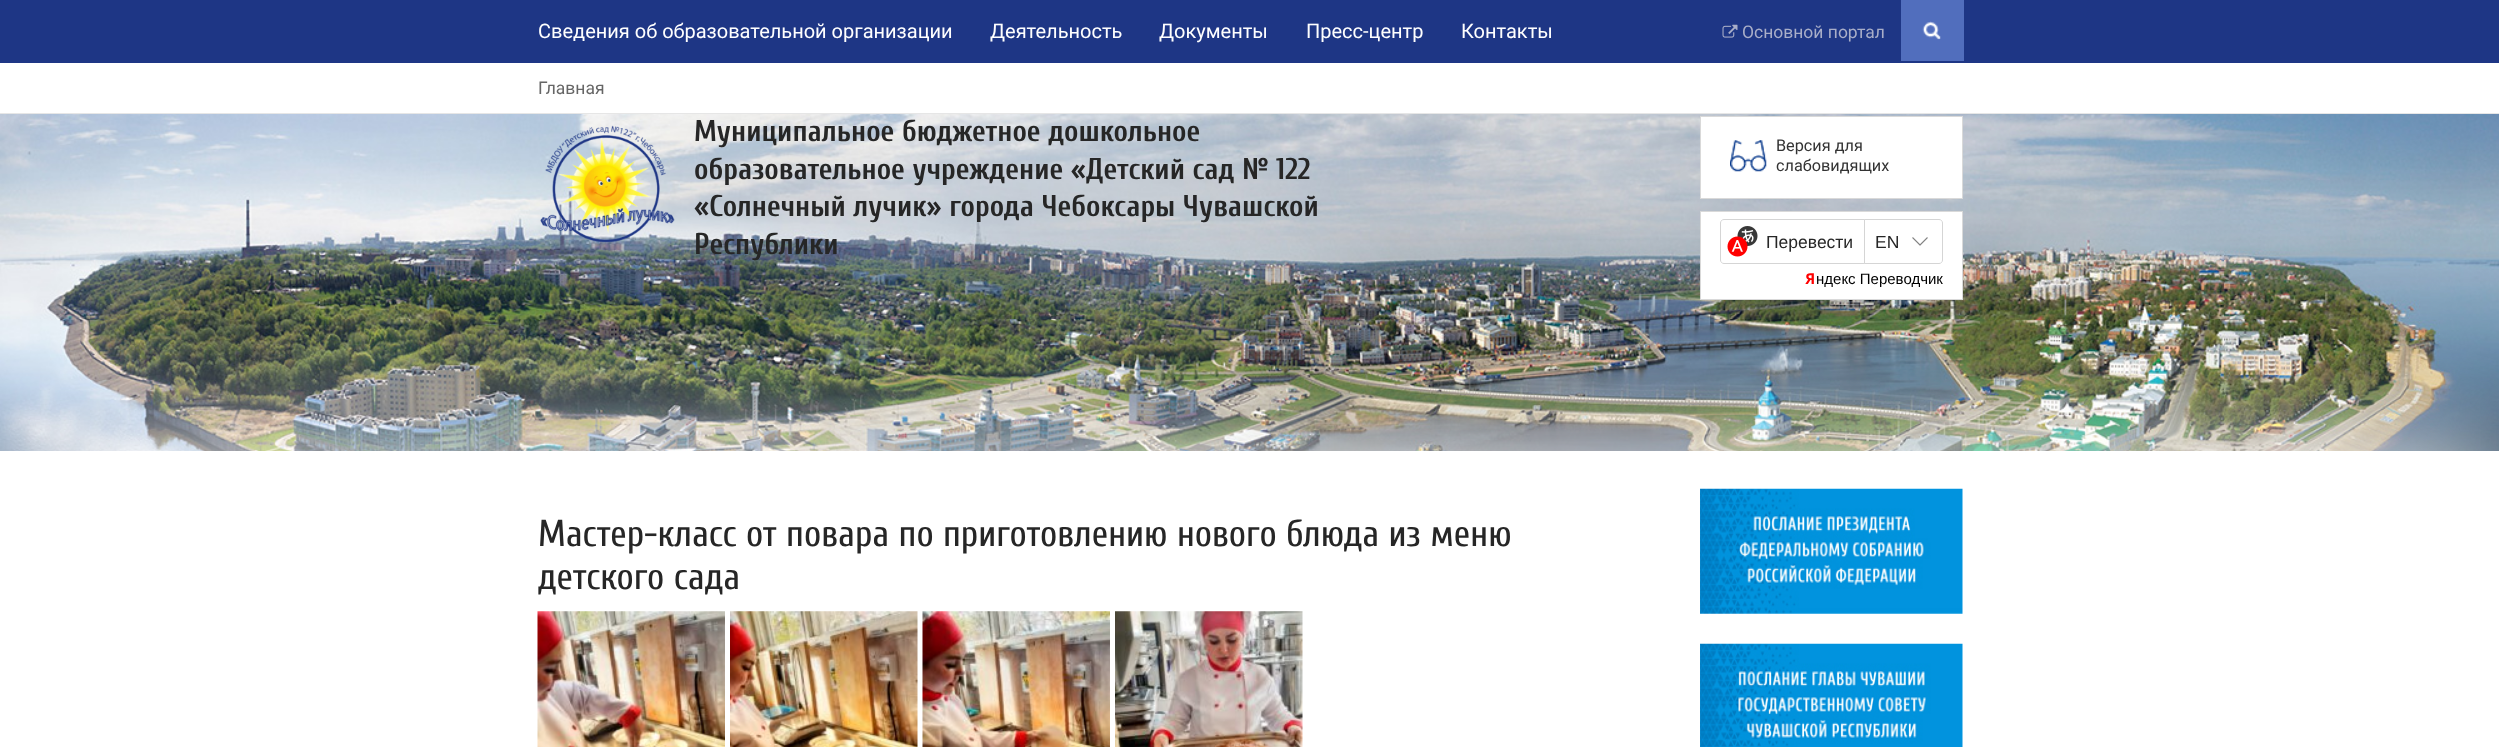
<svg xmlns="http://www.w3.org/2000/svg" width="2499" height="747">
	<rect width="100%" height="100%" fill="#FFFFFF" />
	<image x="0" y="114" width="2499" height="337" href="assets/img1.png" />
	<rect x="0" y="0" width="2499" height="63" fill="#1E3685" />
	<g font-family="Roboto" font-size="20" fill="#FFFFFF">
		<text x="538" y="38">Сведения об образовательной организации</text>
		<text x="990" y="38">Деятельность</text>
		<text x="1159" y="38">Документы</text>
		<text x="1306" y="38">Пресс-центр</text>
		<text x="1461" y="38">Контакты</text>
	</g>
	<image x="1722" y="24" width="16" height="14" href="assets/img2.png" />
	<text x="1742" y="38" font-family="Roboto" font-size="17.5" fill="#A9AEC8">Основной портал</text>
	<rect x="1901" y="0" width="63" height="61" fill="#516EBD" />
	<image x="1922" y="21" width="19" height="19" href="assets/img3.png" />
	<rect x="0" y="113" width="2499" height="1" fill="#E6E6E6" />
	<text x="538" y="94" font-family="Roboto" font-size="17.5" fill="#666666">Главная</text>
	<image x="540" y="125" width="135" height="118" href="assets/img4.png" />
	<g font-family="Cuprum" font-size="30" font-weight="700" fill="#262626">
		<text x="694" y="141">Муниципальное бюджетное дошкольное</text>
		<text x="694" y="179">образовательное учреждение «Детский сад № 122</text>
		<text x="694" y="216">«Солнечный лучик» города Чебоксары Чувашской</text>
		<text x="694" y="254">Республики</text>
	</g>
	<rect x="1700.5" y="116.5" width="262" height="82" fill="#FFFFFF" stroke="#D9D9D9" />
	<image x="1730" y="140" width="37" height="32" href="assets/img5.png" />
	<g font-family="Roboto" font-size="16.25" fill="#333333">
		<text x="1776" y="151">Версия для</text>
		<text x="1776" y="171">слабовидящих</text>
	</g>
	<rect x="0" y="451" width="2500" height="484" fill="#FFFFFF" filter="blur(62.5px)" />
	<rect x="1700.5" y="211.5" width="262" height="88" fill="#FFFFFF" stroke="#D9D9D9" />
	<path d="M1724 219.5H1864.5V263.5H1724C1722 263.5 1720.5 262 1720.5 260V223C1720.5 221 1722 219.5 1724 219.5Z" fill="none" stroke="#D5D5D5" />
	<image x="1727" y="226" width="31" height="31" href="assets/img6.png" />
	<text x="1766" y="248" font-family="Liberation Sans" font-size="17.5" fill="#262626">Перевести</text>
	<path d="M1864.5 219.5H1939C1941 219.5 1942.5 221 1942.5 223V260C1942.5 262 1941 263.5 1939 263.5H1864.5Z" fill="#FFFFFF" stroke="#D5D5D5" />
	<text x="1875" y="248" font-family="Liberation Sans" font-size="17.5" fill="#262626">EN</text>
	<image x="1912" y="237" width="16" height="9" href="assets/img7.png" />
	<text x="1805" y="284" font-family="Noto Sans" font-size="15" font-weight="700" fill="#FF0000">Я</text>
	<text x="1816" y="284" font-family="Liberation Sans" font-size="15" fill="#000000">ндекс Переводчик</text>
	<g font-family="Cuprum" font-size="37.5" fill="#262626">
		<text x="538" y="546">Мастер-класс от повара по приготовлению нового блюда из меню</text>
		<text x="538" y="589">детского сада</text>
	</g>
	<image x="537" y="611" width="188" height="136" href="assets/img8.png" />
	<image x="730" y="611" width="188" height="136" href="assets/img9.png" />
	<image x="922" y="611" width="188" height="136" href="assets/img10.png" />
	<image x="1115" y="611" width="188" height="136" href="assets/img11.png" />
	<image x="1700" y="488" width="263" height="126" href="assets/img12.png" />
	<image x="1700" y="643" width="263" height="104" href="assets/img13.png" />
</svg>
